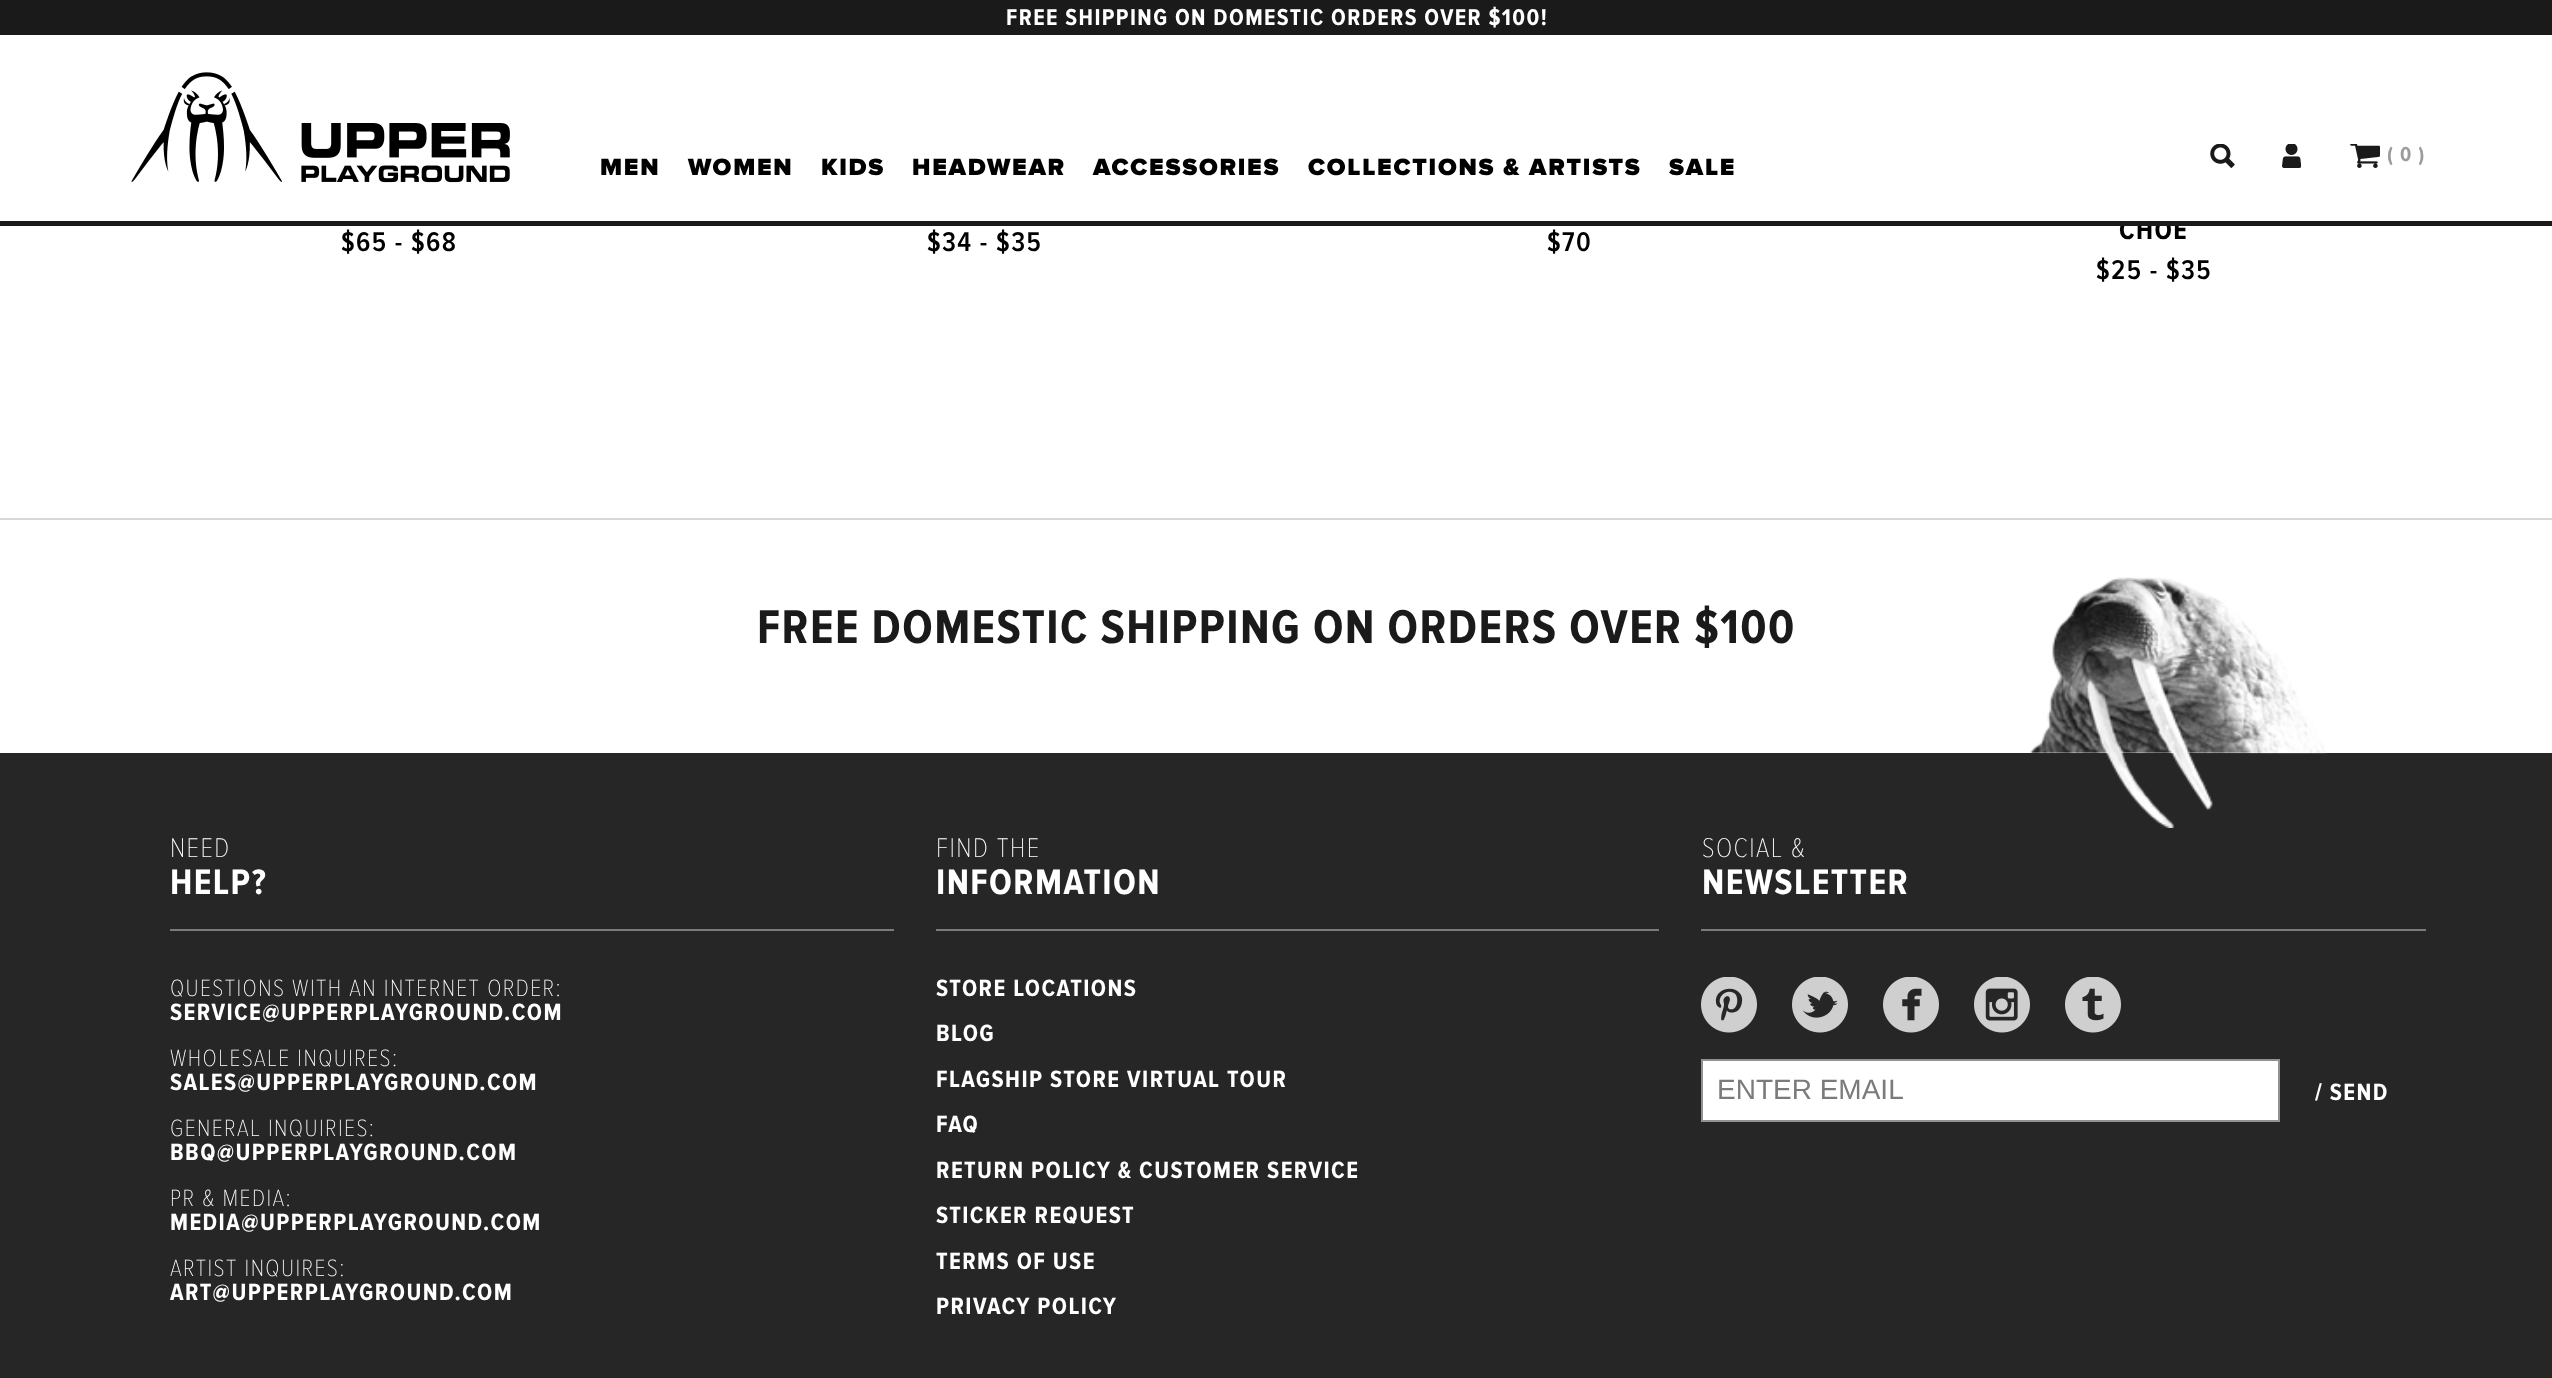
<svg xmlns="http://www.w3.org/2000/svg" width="2552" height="1378">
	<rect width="100%" height="100%" fill="#FFFFFF" />
	<text x="2119" y="239" font-family="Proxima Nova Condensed" font-size="28" font-weight="700" letter-spacing="1.4" fill="#000000">CHOE</text>
	<rect x="2124" y="220" width="63" height="1" fill="#FFFFFF" />
	<rect x="0" y="221" width="2552" height="5" fill="#1B1A1A" />
	<rect x="0" y="0" width="2552" height="35" fill="#1B1A1A" />
	<text x="1006" y="25" font-family="Proxima Nova Condensed" font-size="23.8" font-weight="700" letter-spacing="1.4" fill="#FFFFFF">FREE SHIPPING ON DOMESTIC ORDERS OVER $100!</text>
	<image x="131" y="72" width="379" height="111" href="assets/img1.png" />
	<g font-family="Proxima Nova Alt" font-size="24.5" font-weight="900" letter-spacing="1.75" fill="#000000">
		<text x="600" y="175">MEN</text>
		<text x="688" y="175">WOMEN</text>
		<text x="821" y="175">KIDS</text>
		<text x="912" y="175">HEADWEAR</text>
		<text x="1093" y="175">ACCESSORIES</text>
		<text x="1308" y="175">COLLECTIONS &amp; ARTISTS</text>
		<text x="1669" y="175">SALE</text>
	</g>
	<image x="2210" y="144" width="25" height="24" href="assets/img2.png" />
	<image x="2282" y="144" width="19" height="24" href="assets/img3.png" />
	<image x="2350" y="144" width="30" height="24" href="assets/img4.png" />
	<text x="2387" y="161" font-family="Proxima Nova Condensed" font-size="21" font-weight="700" letter-spacing="1.4" fill="#9C9C9C">( 0 )</text>
	<g font-family="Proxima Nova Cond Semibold" font-size="28" font-weight="600" letter-spacing="1.4" fill="#000000">
		<text x="341" y="251">$65 - $68</text>
		<text x="927" y="251">$34 - $35</text>
		<text x="1547" y="251">$70</text>
		<text x="2096" y="279">$25 - $35</text>
	</g>
	<rect x="0" y="518" width="2552" height="2" fill="#D8D8D8" />
	<rect x="0" y="753" width="2552" height="625" fill="#262626" />
	<image x="2030" y="577" width="298" height="251" href="assets/img5.png" />
	<text x="757" y="643" font-family="Proxima Nova Condensed" font-size="49" font-weight="700" letter-spacing="1.4" fill="#1B1A1A">FREE DOMESTIC SHIPPING ON ORDERS OVER $100</text>
	<rect x="170" y="929" width="724" height="2" fill="#7B7B7B" />
	<text x="170" y="857" font-family="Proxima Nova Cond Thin" font-size="28" font-weight="100" letter-spacing="1.4" fill="#FFFFFF">NEED</text>
	<text x="170" y="894" font-family="Proxima Nova Condensed" font-size="36.75" font-weight="700" letter-spacing="1.4" fill="#FFFFFF">HELP?</text>
	<text x="170" y="996" font-family="Proxima Nova Cond Thin" font-size="24.5" font-weight="100" letter-spacing="1.4" fill="#FFFFFF">QUESTIONS WITH AN INTERNET ORDER:</text>
	<text x="170" y="1020" font-family="Proxima Nova Condensed" font-size="24.5" font-weight="700" letter-spacing="1.4" fill="#FFFFFF">SERVICE@UPPERPLAYGROUND.COM</text>
	<text x="170" y="1066" font-family="Proxima Nova Cond Thin" font-size="24.5" font-weight="100" letter-spacing="1.4" fill="#FFFFFF">WHOLESALE INQUIRES:</text>
	<text x="170" y="1090" font-family="Proxima Nova Condensed" font-size="24.5" font-weight="700" letter-spacing="1.4" fill="#FFFFFF">SALES@UPPERPLAYGROUND.COM</text>
	<text x="170" y="1136" font-family="Proxima Nova Cond Thin" font-size="24.5" font-weight="100" letter-spacing="1.4" fill="#FFFFFF">GENERAL INQUIRIES:</text>
	<text x="170" y="1160" font-family="Proxima Nova Condensed" font-size="24.5" font-weight="700" letter-spacing="1.4" fill="#FFFFFF">BBQ@UPPERPLAYGROUND.COM</text>
	<text x="170" y="1206" font-family="Proxima Nova Cond Thin" font-size="24.5" font-weight="100" letter-spacing="1.4" fill="#FFFFFF">PR &amp; MEDIA:</text>
	<text x="170" y="1230" font-family="Proxima Nova Condensed" font-size="24.5" font-weight="700" letter-spacing="1.4" fill="#FFFFFF">MEDIA@UPPERPLAYGROUND.COM</text>
	<text x="170" y="1276" font-family="Proxima Nova Cond Thin" font-size="24.5" font-weight="100" letter-spacing="1.4" fill="#FFFFFF">ARTIST INQUIRES:</text>
	<text x="170" y="1300" font-family="Proxima Nova Condensed" font-size="24.5" font-weight="700" letter-spacing="1.4" fill="#FFFFFF">ART@UPPERPLAYGROUND.COM</text>
	<rect x="936" y="929" width="723" height="2" fill="#7B7B7B" />
	<text x="936" y="857" font-family="Proxima Nova Cond Thin" font-size="28" font-weight="100" letter-spacing="1.4" fill="#FFFFFF">FIND THE</text>
	<text x="936" y="894" font-family="Proxima Nova Condensed" font-size="36.75" font-weight="700" letter-spacing="1.4" fill="#FFFFFF">INFORMATION</text>
	<g font-family="Proxima Nova Condensed" font-size="24.5" font-weight="700" letter-spacing="1.4" fill="#FFFFFF">
		<text x="936" y="996">STORE LOCATIONS</text>
		<text x="936" y="1041">BLOG</text>
		<text x="936" y="1087">FLAGSHIP STORE VIRTUAL TOUR</text>
		<text x="936" y="1132">FAQ</text>
		<text x="936" y="1178">RETURN POLICY &amp; CUSTOMER SERVICE</text>
		<text x="936" y="1223">STICKER REQUEST</text>
		<text x="936" y="1269">TERMS OF USE</text>
		<text x="936" y="1314">PRIVACY POLICY</text>
	</g>
	<rect x="1701" y="929" width="725" height="2" fill="#7B7B7B" />
	<text x="1702" y="857" font-family="Proxima Nova Cond Thin" font-size="28" font-weight="100" letter-spacing="1.4" fill="#FFFFFF">SOCIAL &amp;</text>
	<text x="1702" y="894" font-family="Proxima Nova Condensed" font-size="36.75" font-weight="700" letter-spacing="1.4" fill="#FFFFFF">NEWSLETTER</text>
	<image x="1701" y="977" width="56" height="56" href="assets/img6.png" />
	<image x="1792" y="977" width="56" height="56" href="assets/img7.png" />
	<image x="1883" y="977" width="56" height="56" href="assets/img8.png" />
	<image x="1974" y="977" width="56" height="56" href="assets/img9.png" />
	<image x="2065" y="977" width="56" height="56" href="assets/img10.png" />
	<rect x="1702" y="1060" width="577" height="61" fill="#FFFFFF" stroke="#909192" stroke-width="2" />
	<text x="1717" y="1099" font-family="Liberation Sans" font-size="28" fill="#7B7B7B">ENTER EMAIL</text>
	<text x="2315" y="1100" font-family="Proxima Nova Condensed" font-size="24.5" font-weight="700" letter-spacing="1.4" fill="#FFFFFF">/ SEND</text>
</svg>
